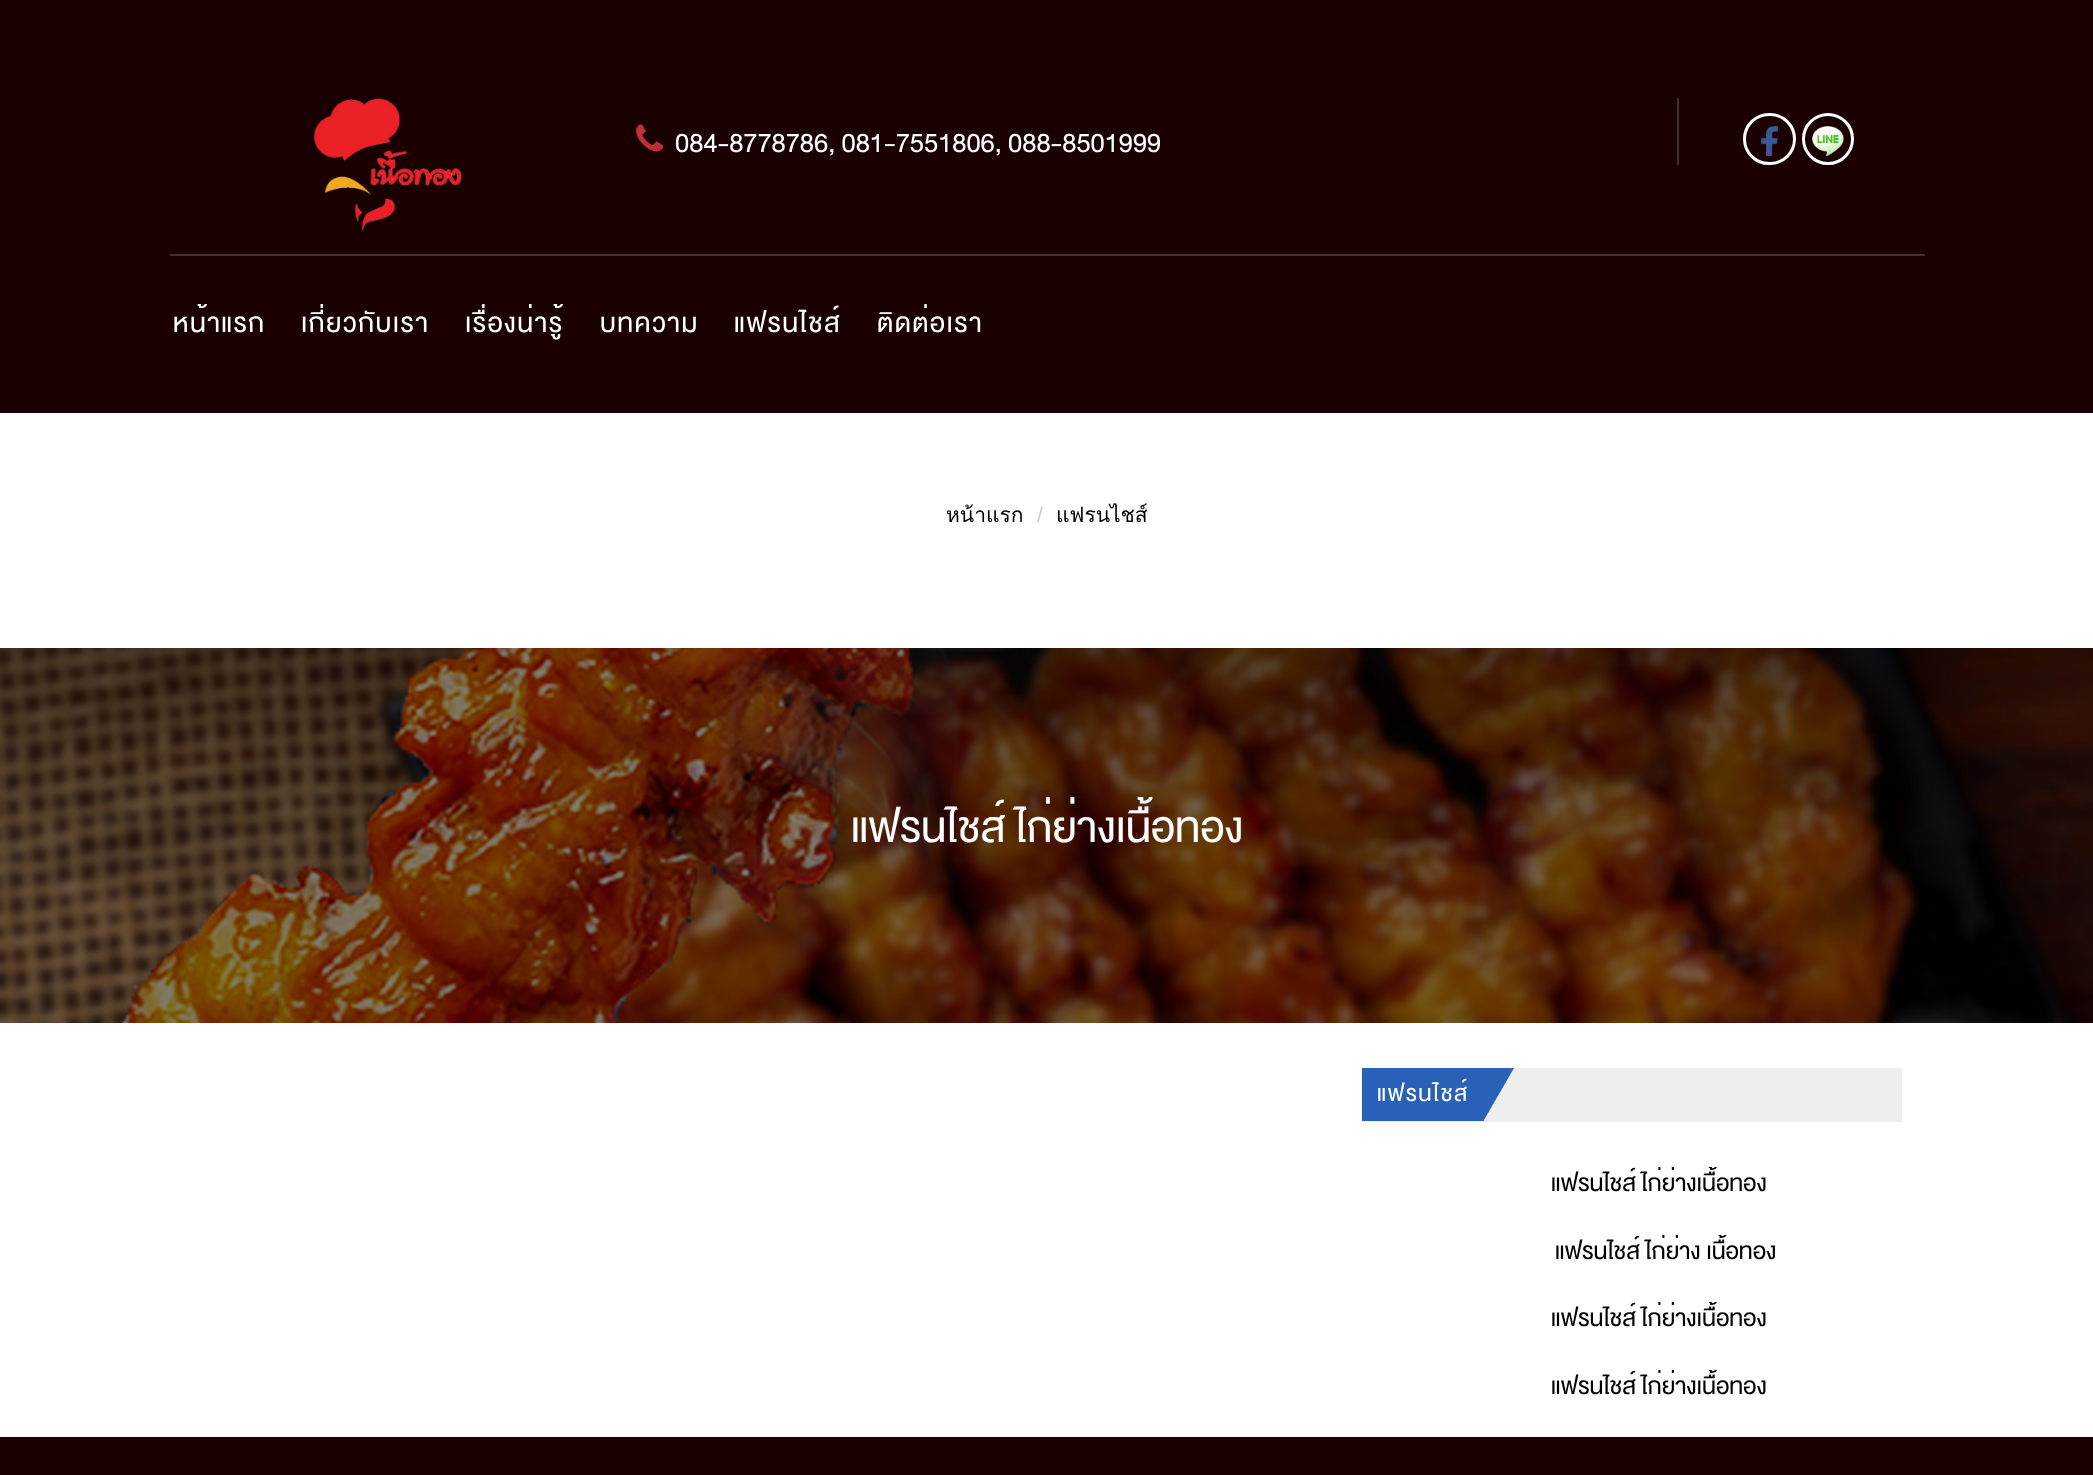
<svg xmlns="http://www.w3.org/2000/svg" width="2093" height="1475">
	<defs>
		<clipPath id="clip1"><rect x="1551" y="1167" width="216" height="45" /></clipPath>
		<clipPath id="clip2"><rect x="1554" y="1235" width="222" height="45" /></clipPath>
		<clipPath id="clip3"><rect x="1551" y="1302" width="216" height="45" /></clipPath>
		<clipPath id="clip4"><rect x="1551" y="1370" width="216" height="45" /></clipPath>
	</defs>
	<rect width="100%" height="100%" fill="#FFFFFF" />
	<rect x="0" y="0" width="2093" height="413" fill="#1A0000" />
	<rect x="170" y="254" width="1755" height="2" fill="#442F30" />
	<image x="313" y="98" width="149" height="133" href="assets/img1.png" />
	<rect x="1677" y="98" width="2" height="67" fill="#442F30" />
	<image x="636" y="124" width="28" height="28" href="assets/img2.png" />
	<text x="675" y="152" font-family="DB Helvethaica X" font-size="37.5" fill="#FFFFFF">084-8778786, 081-7551806, 088-8501999</text>
	<rect x="1744.5" y="114.5" width="50" height="49" rx="24.5" fill="none" stroke="#FFFFFF" stroke-width="3" />
	<image x="1760" y="126" width="18" height="30" href="assets/img3.png" />
	<circle cx="1828" cy="139" r="24.5" fill="none" stroke="#FFFFFF" stroke-width="3" />
	<image x="1812" y="126" width="32" height="30" href="assets/img4.png" />
	<g font-family="DB Helvethaica X" font-size="37.5" letter-spacing="1.5" fill="#FFFFFF">
		<text x="173" y="332">หน้าแรก</text>
		<text x="301" y="332">เกี่ยวกับเรา</text>
		<text x="465" y="332">เรื่องน่ารู้</text>
		<text x="600" y="332">บทความ</text>
		<text x="734" y="332">แฟรนไชส์</text>
		<text x="877" y="332">ติดต่อเรา</text>
	</g>
	<text x="946" y="522" font-family="Loma" font-size="21" fill="#000000">หน้าแรก</text>
	<text x="1037" y="522" font-family="Liberation Sans" font-size="21" fill="#CCCCCC">/</text>
	<text x="1056" y="522" font-family="Loma" font-size="21" fill="#000000">แฟรนไชส์</text>
	<image x="0" y="648" width="2093" height="375" href="assets/img5.png" />
	<text x="851" y="842" font-family="DB Helvethaica X" font-size="60" fill="#FFFFFF">แฟรนไชส์ ไก่ย่างเนื้อทอง</text>
	<rect x="1362" y="1068" width="540" height="54" fill="#EEEEEE" />
	<rect x="1362" y="1068" width="122" height="53" fill="#2A61B8" />
	<text x="1377" y="1101" font-family="DB Helvethaica X" font-size="31.5" letter-spacing="1.5" fill="#FFFFFF">แฟรนไชส์</text>
	<path d="M1484 1068H1514L1484 1120Z" fill="#2A61B8" />
	<g clip-path="url(#clip1)">
		<text x="1551" y="1191" font-family="DB Helvethaica X" font-size="33" fill="#000000">แฟรนไชส์ ไก่ย่างเนื้อทอง</text>
	</g>
	<g clip-path="url(#clip2)">
		<text x="1555" y="1259" font-family="DB Helvethaica X" font-size="33" fill="#000000">แฟรนไชส์ ไก่ย่าง เนื้อทอง</text>
	</g>
	<g clip-path="url(#clip3)">
		<text x="1551" y="1326" font-family="DB Helvethaica X" font-size="33" fill="#000000">แฟรนไชส์ ไก่ย่างเนื้อทอง</text>
	</g>
	<g clip-path="url(#clip4)">
		<text x="1551" y="1394" font-family="DB Helvethaica X" font-size="33" fill="#000000">แฟรนไชส์ ไก่ย่างเนื้อทอง</text>
	</g>
	<rect x="0" y="1437" width="2093" height="38" fill="#1A0000" />
</svg>
